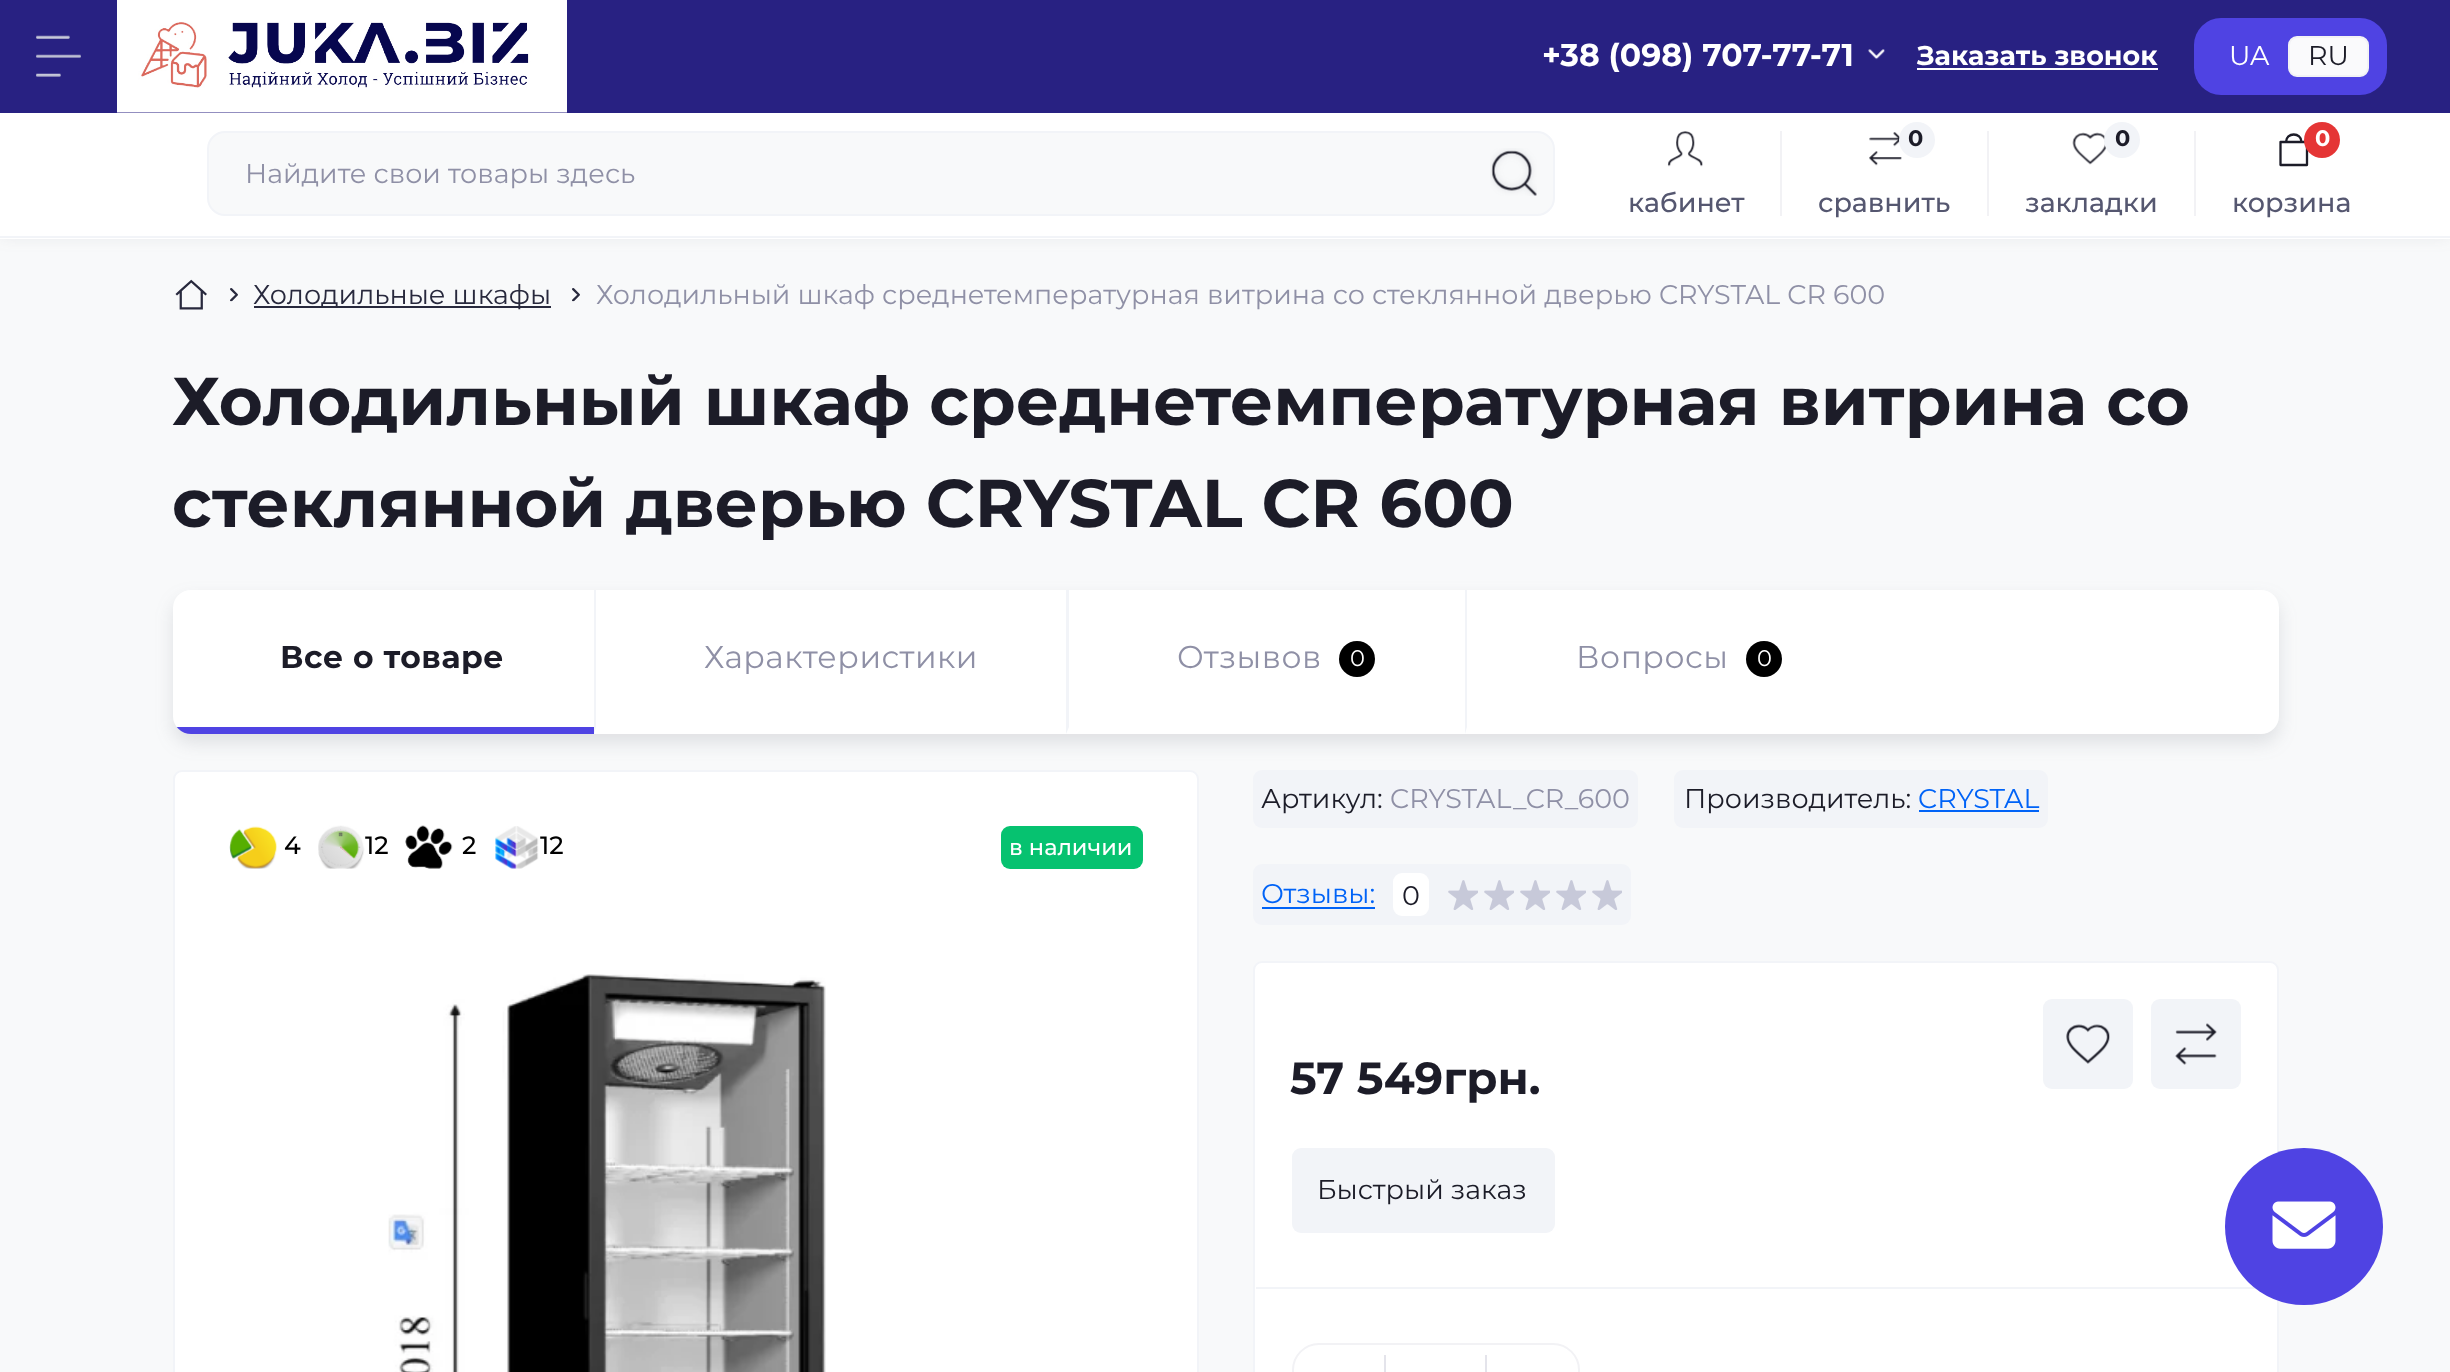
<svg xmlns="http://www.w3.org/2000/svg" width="2450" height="1372">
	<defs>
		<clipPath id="clip1"><rect x="173" y="590" width="2106" height="144" rx="18" /></clipPath>
	</defs>
	<rect width="100%" height="100%" fill="#F8F9FA" />
	<rect x="0" y="108" width="2450" height="126" fill="#606170" fill-opacity="0.16" filter="blur(9px)" />
	<rect x="0" y="0" width="2450" height="113" fill="#282182" />
	<image x="36" y="35" width="45" height="42" href="assets/img1.png" />
	<image x="117" y="0" width="450" height="113" href="assets/img2.png" />
	<text x="1542" y="66" font-family="Montserrat" font-size="31.5" font-weight="700" fill="#FFFFFF">+38 (098) 707-77-71</text>
	<image x="1868" y="49" width="17" height="11" href="assets/img3.png" />
	<text x="1917" y="65" font-family="Montserrat" font-size="27" font-weight="700" fill="#FFFFFF">Заказать звонок</text>
	<rect x="1917" y="68" width="241" height="2" fill="#FFFFFF" />
	<rect x="2194" y="18" width="193" height="77" rx="27" fill="#4F43E3" />
	<text x="2229" y="65" font-family="Montserrat" font-size="27" fill="#FFFFFF">UA</text>
	<rect x="2289" y="37" width="79" height="39" rx="8" fill="#FAFAFC" stroke="#F2F2F5" stroke-width="2" />
	<text x="2308" y="65" font-family="Montserrat" font-size="27" fill="#1C1C28">RU</text>
	<rect x="0" y="113" width="2450" height="126" fill="#FFFFFF" />
	<rect x="0" y="236" width="2450" height="2" fill="#F2F4F8" />
	<rect x="208" y="132" width="1346" height="83" rx="17" fill="#F8F9FA" stroke="#F2F4F8" stroke-width="2" />
	<text x="245" y="183" font-family="Montserrat" font-size="27" fill="#8F90A6">Найдите свои товары здесь</text>
	<image x="1490" y="148" width="47" height="48" href="assets/img4.png" />
	<image x="1667" y="131" width="36" height="36" href="assets/img5.png" />
	<text x="1628" y="212" font-family="Montserrat" font-size="27" font-weight="500" fill="#555770">кабинет</text>
	<rect x="1780" y="131" width="2" height="85" fill="#F2F2F5" />
	<image x="1869" y="132" width="33" height="34" href="assets/img6.png" />
	<circle cx="1917" cy="140" r="18" fill="#F2F4F8" />
	<text x="1908" y="146" font-family="Montserrat" font-size="22.5" font-weight="700" fill="#1C1C28">0</text>
	<text x="1818" y="212" font-family="Montserrat" font-size="27" font-weight="500" fill="#555770">сравнить</text>
	<rect x="1987" y="131" width="2" height="85" fill="#F2F2F5" />
	<image x="2072" y="132" width="35" height="33" href="assets/img7.png" />
	<circle cx="2122" cy="140" r="18" fill="#F2F4F8" />
	<text x="2115" y="146" font-family="Montserrat" font-size="22.5" font-weight="700" fill="#1C1C28">0</text>
	<text x="2025" y="212" font-family="Montserrat" font-size="27" font-weight="500" fill="#555770">закладки</text>
	<rect x="2194" y="131" width="2" height="85" fill="#F2F2F5" />
	<path d="M2280.5 142H2307V165H2280.5ZM2286 142C2286 132 2301.5 132 2301.5 142" fill="none" stroke="#1C1C28" stroke-width="2.3" stroke-linecap="round" stroke-linejoin="round" />
	<circle cx="2322" cy="140" r="18" fill="#E53535" />
	<text x="2315" y="146" font-family="Montserrat" font-size="22.5" font-weight="700" fill="#FFFFFF">0</text>
	<text x="2232" y="212" font-family="Montserrat" font-size="27" font-weight="500" fill="#555770">корзина</text>
	<image x="175" y="279" width="32" height="31" href="assets/img8.png" />
	<image x="230" y="288" width="8" height="14" href="assets/img9.png" />
	<rect x="254" y="306" width="297" height="2" fill="#28293D" />
	<text x="253" y="304" font-family="Montserrat" font-size="27" fill="#28293D">Холодильные шкафы</text>
	<image x="572" y="288" width="8" height="14" href="assets/img9.png" />
	<text x="596" y="304" font-family="Montserrat" font-size="27" fill="#8F90A6">Холодильный шкаф среднетемпературная витрина со стеклянной дверью CRYSTAL CR 600</text>
	<g font-family="Montserrat" font-size="67.5" font-weight="700" fill="#1C1C28">
		<text x="172" y="425">Холодильный шкаф среднетемпературная витрина со</text>
		<text x="172" y="527">стеклянной дверью CRYSTAL CR 600</text>
	</g>
	<rect x="174" y="771" width="1024" height="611" rx="8" fill="#FFFFFF" stroke="#F2F4F8" stroke-width="2" />
	<rect x="1253" y="770" width="385" height="58" rx="9" fill="#F2F4F8" />
	<rect x="1674" y="770" width="374" height="58" rx="9" fill="#F2F4F8" />
	<rect x="173" y="599" width="2106" height="144" rx="18" fill="#606170" fill-opacity="0.16" filter="blur(9px)" />
	<rect x="173" y="590" width="2106" height="144" rx="18" fill="#FFFFFF" />
	<g clip-path="url(#clip1)">
		<rect x="173" y="727" width="421" height="7" fill="#4F43E3" />
	</g>
	<text x="280" y="668" font-family="Montserrat" font-size="31.5" font-weight="700" letter-spacing="0.5" fill="#1C1C28">Все о товаре</text>
	<path d="M594 734V590H596V727Z" fill="#F2F4F8" />
	<text x="704" y="668" font-family="Montserrat" font-size="31.5" letter-spacing="0.5" fill="#8F90A6">Характеристики</text>
	<path d="M1066 734V590H1069V727Z" fill="#F2F4F8" />
	<text x="1177" y="668" font-family="Montserrat" font-size="31.5" letter-spacing="0.5" fill="#8F90A6">Отзывов</text>
	<circle cx="1357" cy="659" r="18" fill="#000000" />
	<text x="1350" y="666" font-family="Montserrat" font-size="22.5" fill="#FFFFFF">0</text>
	<path d="M1465 734V590H1467V727Z" fill="#F2F4F8" />
	<text x="1576" y="668" font-family="Montserrat" font-size="31.5" letter-spacing="0.5" fill="#8F90A6">Вопросы</text>
	<circle cx="1764" cy="659" r="18" fill="#000000" />
	<text x="1757" y="666" font-family="Montserrat" font-size="22.5" fill="#FFFFFF">0</text>
	<image x="229" y="826" width="48" height="43" href="assets/img10.png" />
	<text x="284" y="854" font-family="Montserrat" font-size="25" font-weight="500" fill="#000000">4</text>
	<image x="318" y="825" width="47" height="44" href="assets/img11.png" />
	<text x="365" y="854" font-family="Montserrat" font-size="25" font-weight="500" fill="#000000">12</text>
	<image x="405" y="825" width="48" height="44" href="assets/img12.png" />
	<text x="462" y="854" font-family="Montserrat" font-size="25" font-weight="500" fill="#000000">2</text>
	<image x="495" y="826" width="44" height="43" href="assets/img13.png" />
	<text x="540" y="854" font-family="Montserrat" font-size="25" font-weight="500" fill="#000000">12</text>
	<rect x="1001" y="826" width="142" height="43" rx="9" fill="#06C270" />
	<text x="1009" y="855" font-family="Montserrat" font-size="22.5" font-weight="500" fill="#FFFFFF">в наличии</text>
	<image x="388" y="974" width="438" height="398" href="assets/img14.png" />
	<text x="1261" y="808" font-family="Montserrat" font-size="27" fill="#1C1C28">Артикул:</text>
	<text x="1390" y="808" font-family="Montserrat" font-size="27" fill="#8F90A6">CRYSTAL_CR_600</text>
	<text x="1684" y="808" font-family="Montserrat" font-size="27" fill="#1C1C28">Производитель:</text>
	<text x="1918" y="808" font-family="Montserrat" font-size="27" fill="#0063F7">CRYSTAL</text>
	<rect x="1919" y="810" width="120" height="2" fill="#0063F7" />
	<rect x="1253" y="864" width="378" height="61" rx="9" fill="#F2F4F8" />
	<text x="1261" y="903" font-family="Montserrat" font-size="27" fill="#0063F7">Отзывы:</text>
	<rect x="1262" y="907" width="113" height="2" fill="#0063F7" />
	<rect x="1393" y="873" width="36" height="43" rx="9" fill="#FFFFFF" />
	<text x="1402" y="905" font-family="Montserrat" font-size="27" fill="#1C1C28">0</text>
	<image x="1448" y="880" width="30" height="30" href="assets/img15.png" />
	<image x="1484" y="880" width="30" height="30" href="assets/img15.png" />
	<image x="1520" y="880" width="30" height="30" href="assets/img15.png" />
	<image x="1556" y="880" width="30" height="30" href="assets/img15.png" />
	<image x="1592" y="880" width="30" height="30" href="assets/img15.png" />
	<rect x="1254" y="962" width="1024" height="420" rx="8" fill="#FFFFFF" stroke="#F2F4F8" stroke-width="2" />
	<rect x="1256" y="1287" width="1000" height="2" fill="#F2F4F8" />
	<rect x="2043" y="999" width="90" height="90" rx="9" fill="#F2F4F8" />
	<image x="2066" y="1024" width="44" height="40" href="assets/img16.png" />
	<rect x="2151" y="999" width="90" height="90" rx="9" fill="#F2F4F8" />
	<image x="2175" y="1023" width="42" height="42" href="assets/img17.png" />
	<text x="1290" y="1094" font-family="Montserrat" font-size="45" font-weight="700" fill="#1C1C28">57 549грн.</text>
	<rect x="1292" y="1148" width="263" height="85" rx="9" fill="#F2F4F8" />
	<text x="1317" y="1199" font-family="Montserrat" font-size="27" fill="#1C1C28">Быстрый заказ</text>
	<rect x="1293" y="1344" width="286" height="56" rx="26" fill="none" stroke="#F2F2F5" stroke-width="2" />
	<rect x="1485" y="1355" width="2" height="17" fill="#E4E4EB" />
	<rect x="1384" y="1355" width="2" height="17" fill="#E4E4EB" />
	<rect x="2225" y="1148" width="158" height="157" rx="78.5" fill="#4F43E3" />
	<image x="2272" y="1201" width="64" height="48" href="assets/img18.png" />
</svg>
